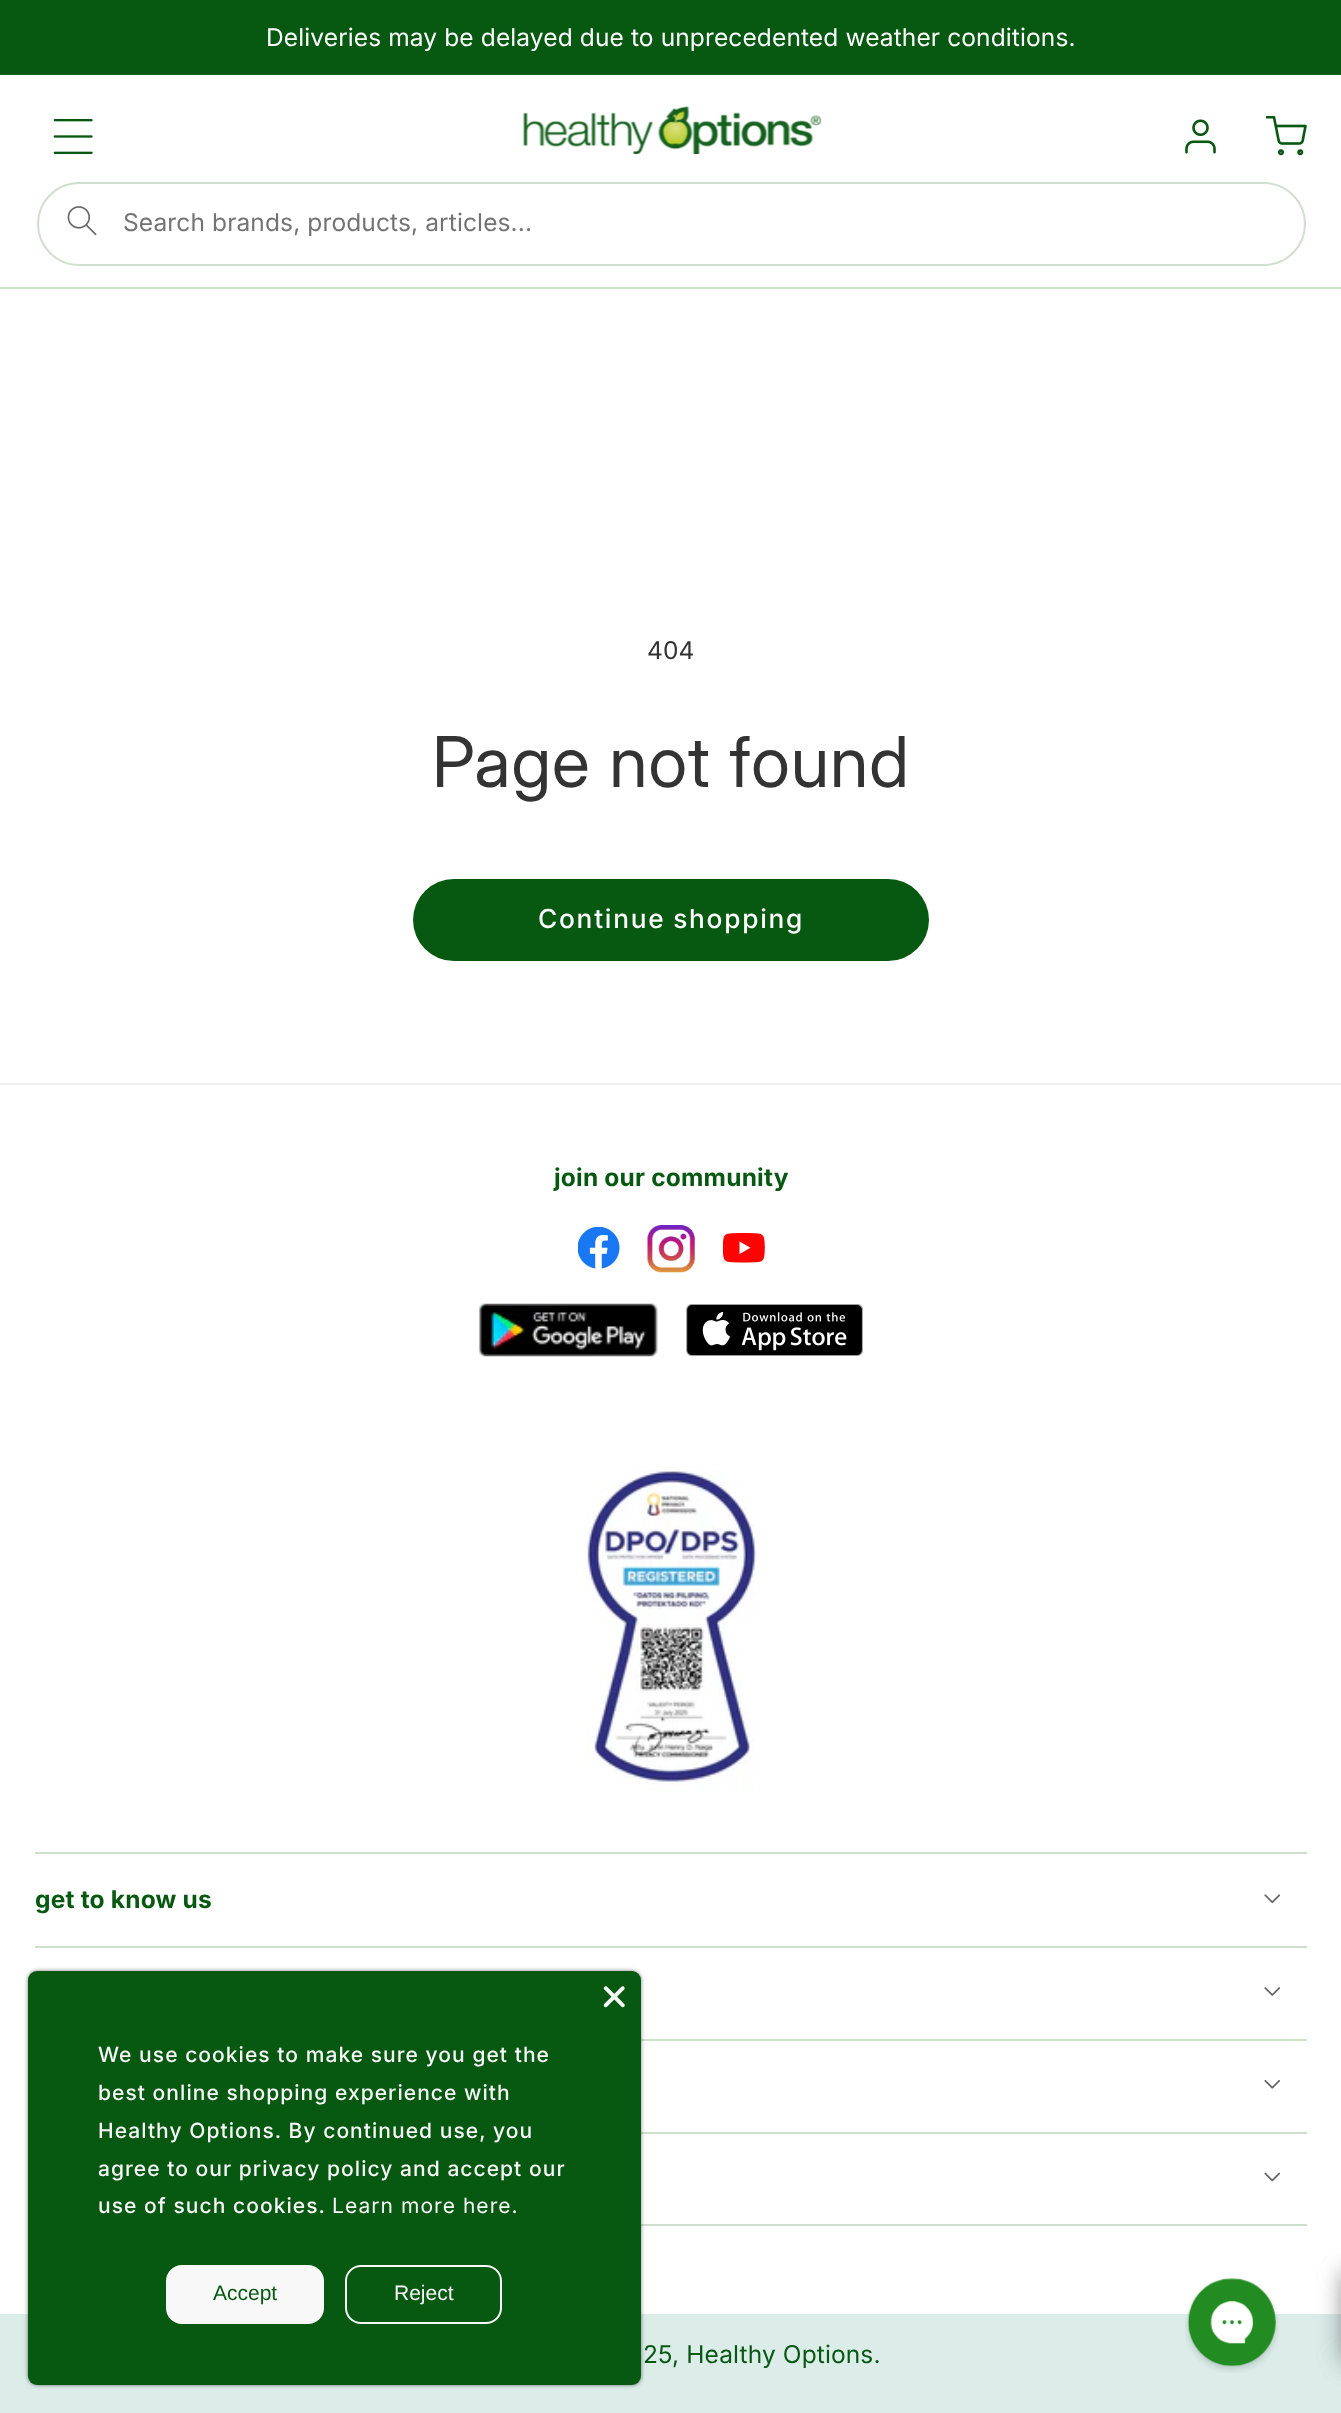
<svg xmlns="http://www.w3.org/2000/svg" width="1341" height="2413">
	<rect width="100%" height="100%" fill="#FFFFFF" />
	<rect x="0" y="0" width="1341" height="74" fill="#075811" />
	<rect x="0" y="74" width="1341" height="1" fill="#1B6524" />
	<text x="266" y="46" font-family="Inter" font-size="24.5" letter-spacing="0.12" fill="#FFFFFF">Deliveries may be delayed due to unprecedented weather conditions.</text>
	<rect x="0" y="287" width="1341" height="2" fill="#CFDFCD" />
	<image x="53" y="119" width="40" height="35" href="assets/img1.png" />
	<image x="522" y="106" width="300" height="48" href="assets/img2.png" />
	<image x="1185" y="119" width="31" height="35" href="assets/img3.png" />
	<image x="1265" y="116" width="42" height="40" href="assets/img4.png" />
	<rect x="38" y="183" width="1267" height="82" rx="41" fill="none" stroke="#CFDFCD" stroke-width="2" />
	<image x="67" y="206" width="30" height="30" href="assets/img5.png" />
	<text x="123" y="231" font-family="Inter" font-size="24.5" letter-spacing="0.12" fill="#737373">Search brands, products, articles...</text>
	<text x="647" y="659" font-family="Inter" font-size="24.5" letter-spacing="0.12" fill="#333333">404</text>
	<text x="432" y="787" font-family="'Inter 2'" font-size="70" letter-spacing="1.05" fill="#333333">Page not found</text>
	<rect x="413" y="879" width="516" height="82" rx="41" fill="#075811" />
	<text x="538" y="928" word-spacing="-1" font-family="Inter" font-size="26.25" font-weight="500" letter-spacing="1.75" fill="#FFFFFF">Continue shopping</text>
	<rect x="0" y="1083" width="1341" height="2" fill="#EFEFEF" />
	<text x="554" y="1186" font-family="Inter" font-size="24.5" font-weight="700" letter-spacing="0.2" fill="#075811">join our community</text>
	<image x="578" y="1227" width="42" height="42" href="assets/img6.png" />
	<image x="647" y="1225" width="48" height="48" href="assets/img7.png" />
	<image x="723" y="1232" width="42" height="31" href="assets/img8.png" />
	<image x="479" y="1303" width="179" height="54" href="assets/img9.png" />
	<image x="686" y="1304" width="177" height="52" href="assets/img10.png" />
	<image x="586" y="1470" width="171" height="322" href="assets/img11.png" />
	<rect x="35" y="1852" width="1272" height="2" fill="#CFDFCD" />
	<rect x="35" y="1946" width="1272" height="2" fill="#CFDFCD" />
	<text x="35" y="1908" font-family="Inter" font-size="24.5" font-weight="700" letter-spacing="0.2" fill="#075811">get to know us</text>
	<image x="1264" y="1894" width="17" height="10" href="assets/img12.png" />
	<rect x="641" y="2039" width="666" height="2" fill="#CFDFCD" />
	<image x="1264" y="1987" width="16" height="9" href="assets/img13.png" />
	<rect x="641" y="2132" width="666" height="2" fill="#CFDFCD" />
	<image x="1264" y="2079" width="17" height="10" href="assets/img14.png" />
	<rect x="641" y="2224" width="666" height="2" fill="#CFDFCD" />
	<image x="1264" y="2172" width="17" height="10" href="assets/img15.png" />
	<rect x="0" y="2314" width="1341" height="99" fill="#DBECE9" />
	<text x="643" y="2363" font-family="Inter" font-size="24.5" letter-spacing="0.12" fill="#075811">25, Healthy Options.</text>
	<rect x="28" y="1971" width="613" height="414" rx="9" fill="#000000" fill-opacity="0.5" filter="blur(2px)" />
	<rect x="28" y="1971" width="613" height="414" rx="9" fill="#075811" />
	<image x="603" y="1986" width="22" height="22" href="assets/img16.png" />
	<g font-family="Inter" font-size="21" font-weight="500" letter-spacing="1.05" fill="#F8F8F8">
		<text x="98" y="2062">We use cookies to make sure you get the</text>
		<text x="98" y="2100">best online shopping experience with</text>
		<text x="98" y="2138">Healthy Options. By continued use, you</text>
		<text x="98" y="2176">agree to our privacy policy and accept our</text>
		<text x="98" y="2213">use of such cookies.</text>
	</g>
	<text x="332" y="2213" font-family="Inter" font-size="21" letter-spacing="1.05" fill="#F8F8F8">Learn more here.</text>
	<rect x="166" y="2265" width="158" height="59" rx="16" fill="#F8F8F8" />
	<text x="213" y="2300" font-family="Liberation Sans" font-size="21" fill="#075811">Accept</text>
	<rect x="346" y="2266" width="155" height="57" rx="15" fill="none" stroke="#F8F8F8" stroke-width="2" />
	<text x="394" y="2300" font-family="Liberation Sans" font-size="21" fill="#F8F8F8">Reject</text>
	<rect x="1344" y="2273" width="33" height="88" fill="#757575" fill-opacity="0.5" filter="blur(12px)" />
	<image x="1185" y="2278" width="94" height="95" href="assets/img17.png" />
	<rect x="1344" y="2273" width="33" height="88" fill="#757575" fill-opacity="0.5" filter="blur(12px)" />
</svg>
